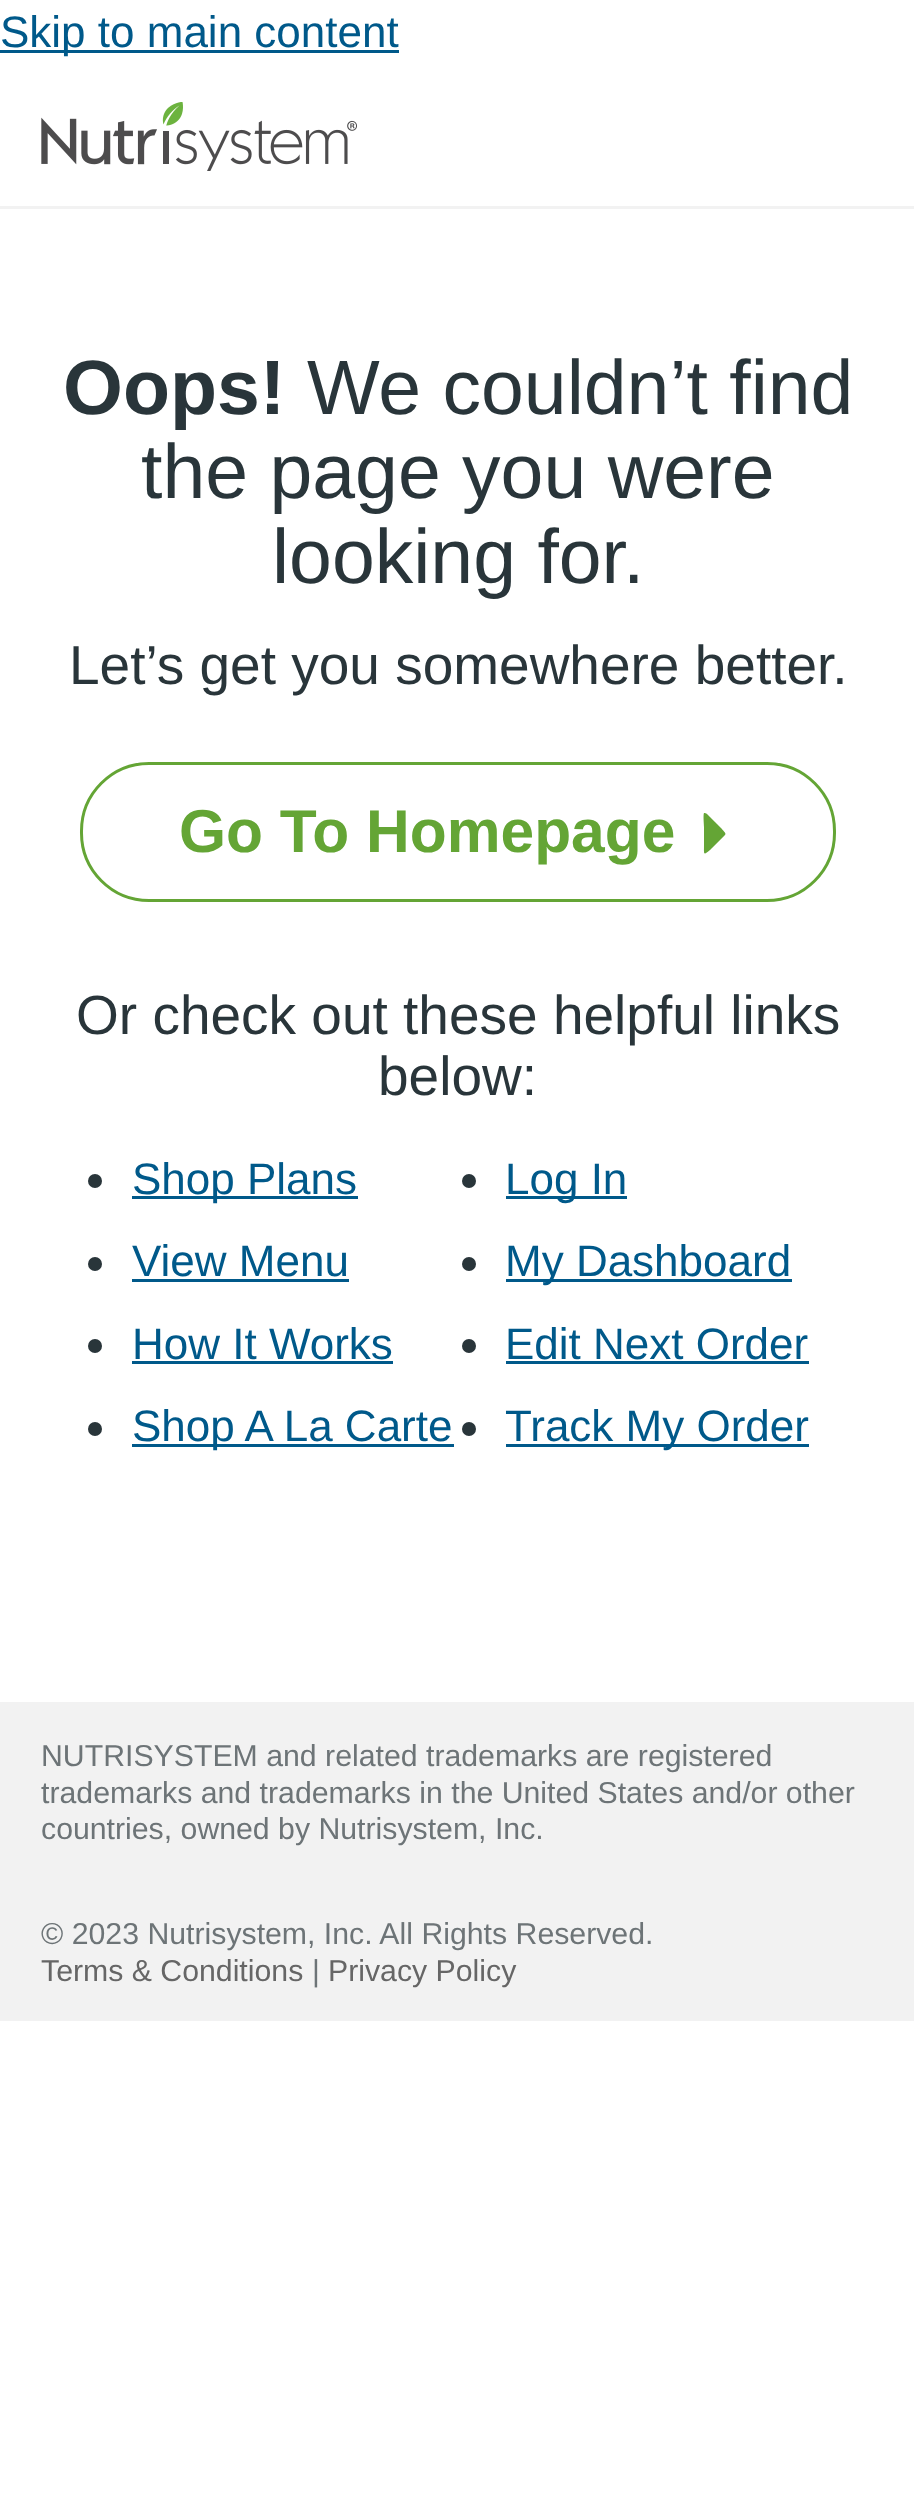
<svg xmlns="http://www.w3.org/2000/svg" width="914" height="2512">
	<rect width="100%" height="100%" fill="#FFFFFF" />
	<rect x="0" y="50" width="399" height="3" fill="#00598A" />
	<text x="0" y="47" font-family="Liberation Sans" font-size="44" fill="#00598A">Skip to main content</text>
	<rect x="0" y="206" width="914" height="3" fill="#F2F2F2" />
	<image x="41" y="102" width="316" height="69" href="assets/img1.png" />
	<text x="63" y="414" font-family="Liberation Sans" font-size="77" font-weight="700" fill="#29353A">Oops!</text>
	<g font-family="Liberation Sans" font-size="77" fill="#29353A">
		<text x="307" y="414">We couldn’t find</text>
		<text x="141" y="498">the page you were</text>
		<text x="272" y="583">looking for.</text>
	</g>
	<text x="69" y="684" font-family="Liberation Sans" font-size="55" fill="#29353A">Let’s get you somewhere better.</text>
	<rect x="81.5" y="763.5" width="753" height="137" rx="67.5" fill="none" stroke="#64A535" stroke-width="3" />
	<text x="179" y="852" font-family="Liberation Sans" font-size="60.5" font-weight="700" fill="#64A535">Go To Homepage</text>
	<path d="M725 835L710 850C703 856 704 854 704 845V827C704 825 703 815 704 813C705 813 706 813 707 814L722 829C722 830 727 833 725 835Z" fill="#64A535" />
	<g font-family="Liberation Sans" font-size="55" fill="#29353A">
		<text x="76" y="1034">Or check out these helpful links</text>
		<text x="378" y="1095">below:</text>
	</g>
	<circle cx="95" cy="1181" r="7" fill="#29353A" />
	<rect x="132" y="1196" width="226" height="3" fill="#00598A" />
	<text x="132" y="1194" font-family="Liberation Sans" font-size="44" fill="#00598A">Shop Plans</text>
	<circle cx="469" cy="1181" r="7" fill="#29353A" />
	<rect x="506" y="1196" width="121" height="3" fill="#00598A" />
	<text x="505" y="1194" font-family="Liberation Sans" font-size="44" fill="#00598A">Log In</text>
	<circle cx="95" cy="1264" r="7" fill="#29353A" />
	<text x="132" y="1276" font-family="Liberation Sans" font-size="44" fill="#00598A">View Menu</text>
	<rect x="132" y="1279" width="217" height="3" fill="#00598A" />
	<circle cx="469" cy="1264" r="7" fill="#29353A" />
	<rect x="506" y="1279" width="286" height="3" fill="#00598A" />
	<text x="505" y="1276" font-family="Liberation Sans" font-size="44" fill="#00598A">My Dashboard</text>
	<circle cx="95" cy="1346" r="7" fill="#29353A" />
	<text x="132" y="1359" font-family="Liberation Sans" font-size="44" fill="#00598A">How It Works</text>
	<rect x="132" y="1361" width="261" height="3" fill="#00598A" />
	<circle cx="469" cy="1346" r="7" fill="#29353A" />
	<text x="505" y="1359" font-family="Liberation Sans" font-size="44" fill="#00598A">Edit Next Order</text>
	<rect x="506" y="1361" width="303" height="3" fill="#00598A" />
	<circle cx="95" cy="1429" r="7" fill="#29353A" />
	<rect x="132" y="1444" width="322" height="3" fill="#00598A" />
	<text x="132" y="1441" font-family="Liberation Sans" font-size="44" fill="#00598A">Shop A La Carte</text>
	<circle cx="469" cy="1429" r="7" fill="#29353A" />
	<rect x="506" y="1444" width="303" height="3" fill="#00598A" />
	<text x="505" y="1441" font-family="Liberation Sans" font-size="44" fill="#00598A">Track My Order</text>
	<rect x="0" y="1702" width="914" height="319" fill="#F2F2F2" />
	<g font-family="Liberation Sans" font-size="30.25" fill="#6D7477">
		<text x="41" y="1766">NUTRISYSTEM and related trademarks are registered</text>
		<text x="41" y="1803">trademarks and trademarks in the United States and/or other</text>
		<text x="41" y="1839">countries, owned by Nutrisystem, Inc.</text>
		<text x="41" y="1944">© 2023 Nutrisystem, Inc. All Rights Reserved.</text>
	</g>
	<text x="41" y="1981" font-family="Liberation Sans" font-size="30.25" fill="#666666">Terms &amp; Conditions</text>
	<text x="312" y="1981" font-family="Liberation Sans" font-size="30.25" fill="#6D7477">|</text>
	<text x="328" y="1981" font-family="Liberation Sans" font-size="30.25" fill="#666666">Privacy Policy</text>
</svg>
